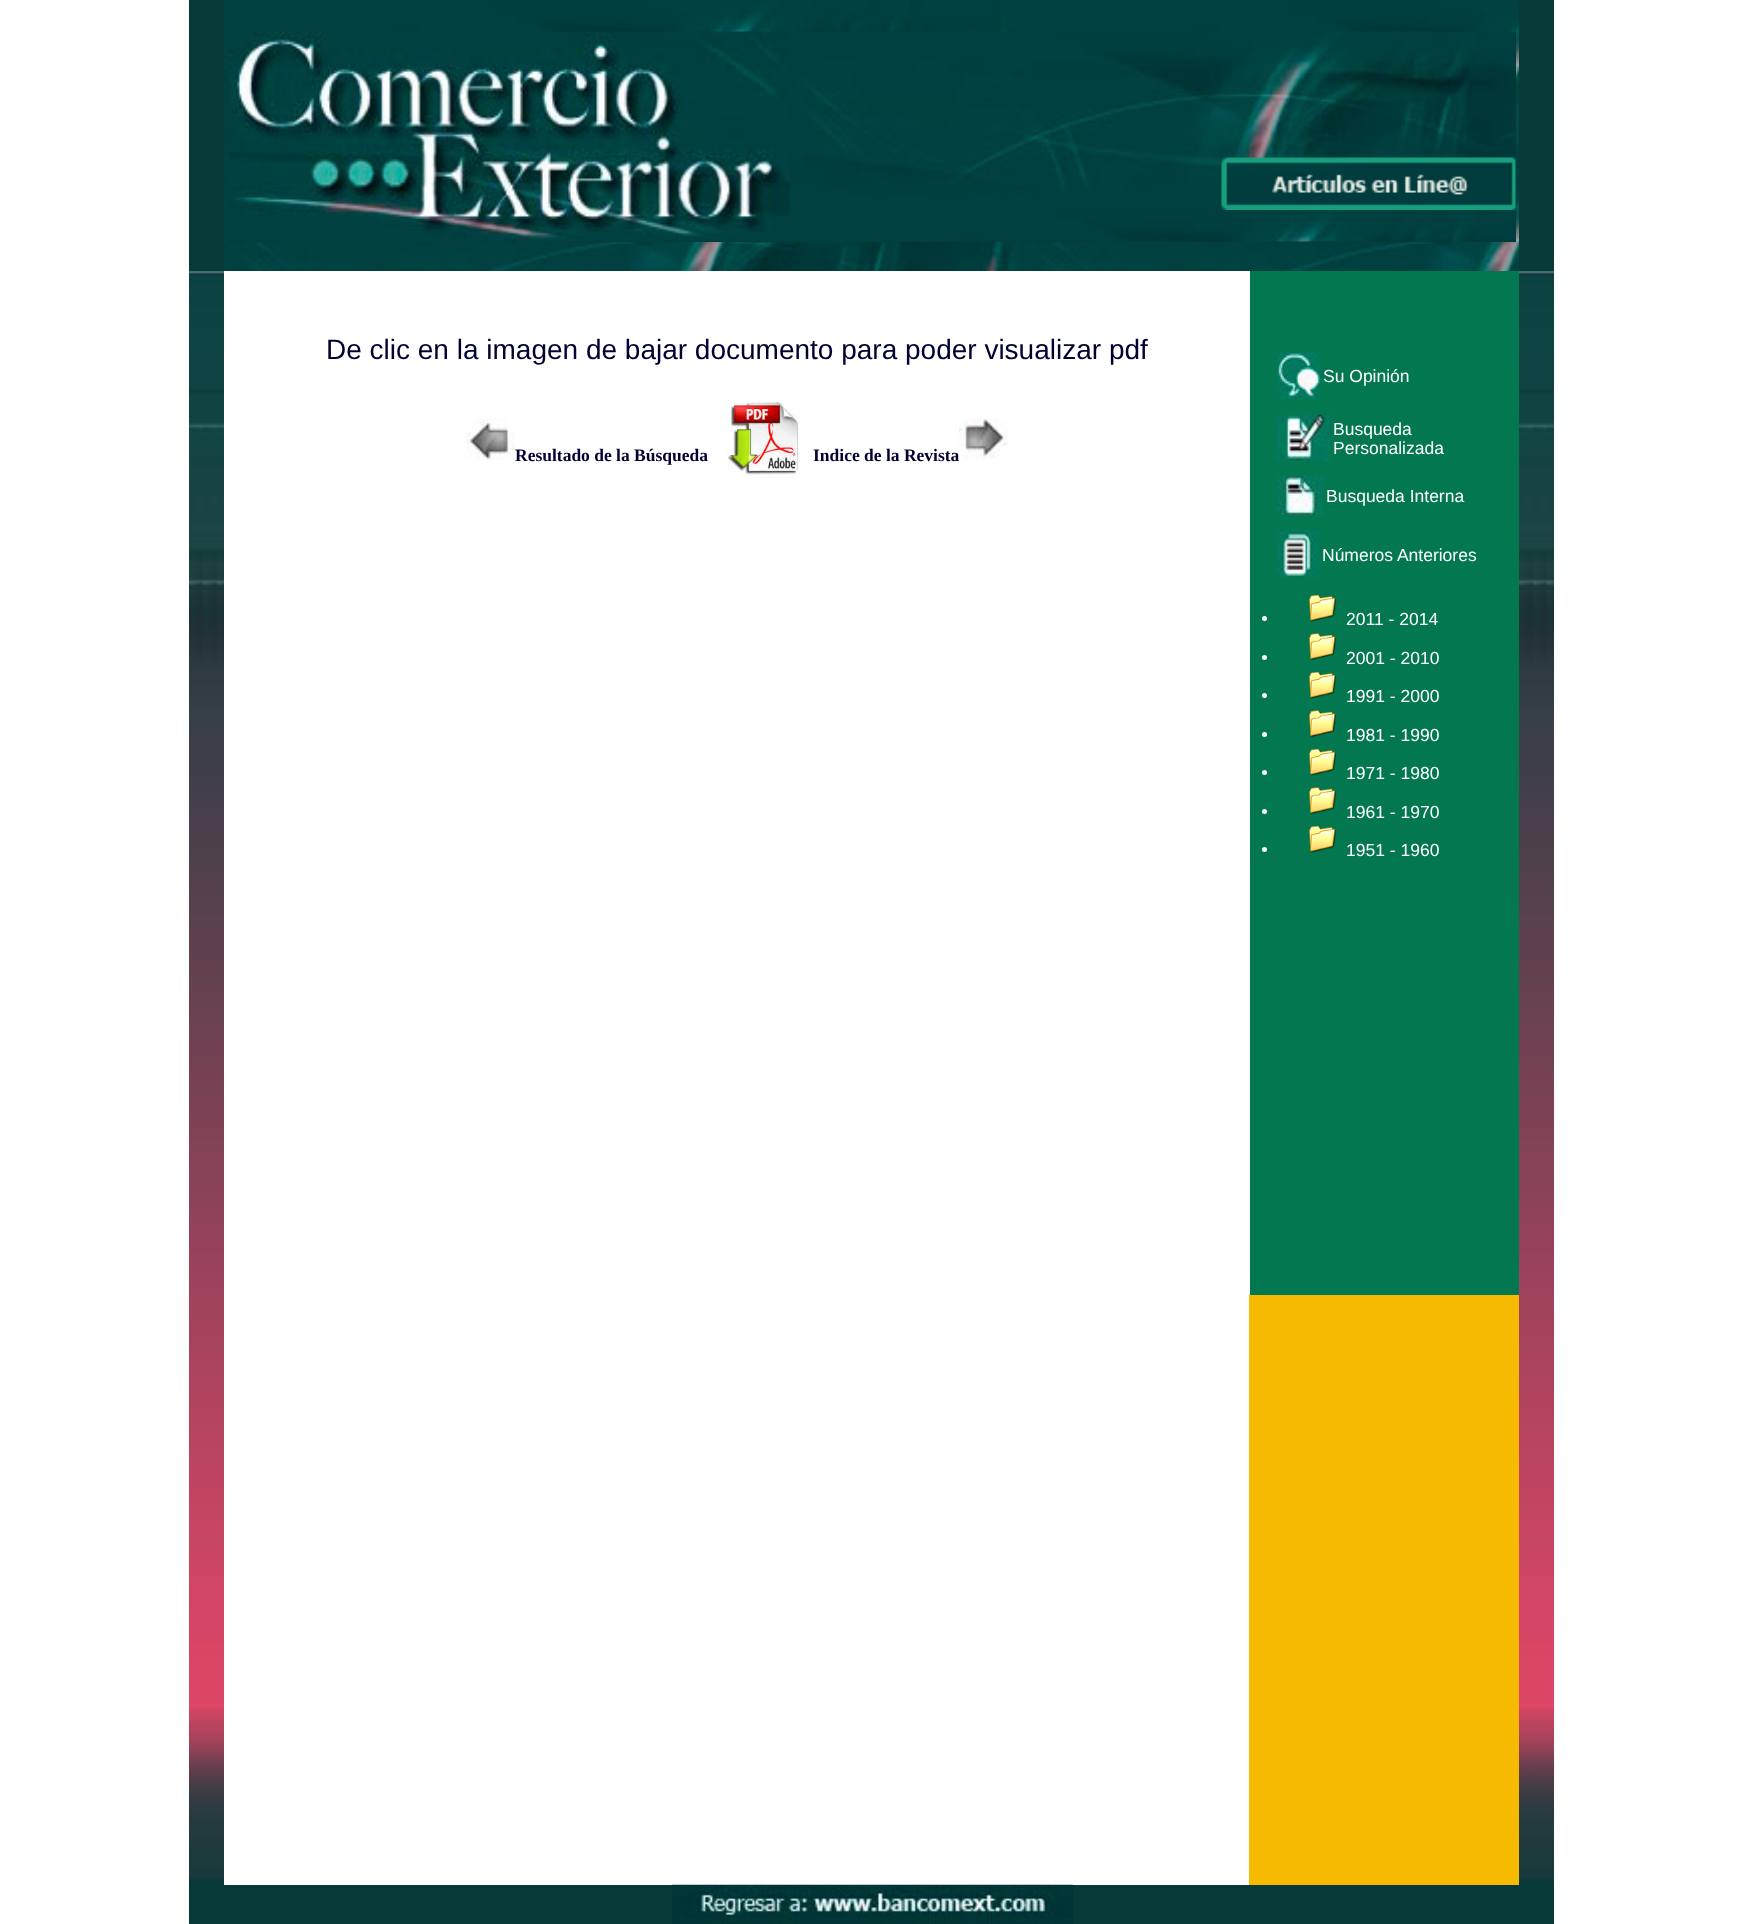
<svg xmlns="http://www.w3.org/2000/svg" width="1743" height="1924">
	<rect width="100%" height="100%" fill="#FFFFFF" />
	<rect x="189" y="0" width="1365" height="1924" fill="#073938" />
	<image x="224" y="0" width="1295" height="271" href="assets/img1.png" />
	<rect x="229" y="32" width="1287" height="210" fill="#073938" />
	<image x="229" y="31" width="560" height="211" href="assets/img2.png" />
	<image x="789" y="31" width="727" height="211" href="assets/img3.png" />
	<image x="1221" y="157" width="295" height="53" href="assets/img4.png" />
	<image x="189" y="271" width="35" height="1610" href="assets/img5.png" />
	<rect x="224" y="1295" width="1025" height="590" fill="#FFFFFF" />
	<rect x="1249" y="1295" width="270" height="590" fill="#F6BA01" />
	<rect x="224" y="271" width="1026" height="1024" fill="#FFFFFF" />
	<text x="326" y="359" font-family="Liberation Sans" font-size="28" fill="#000033">De clic en la imagen de bajar documento para poder visualizar pdf</text>
	<image x="465" y="418" width="50" height="42" href="assets/img6.png" />
	<text x="515" y="461" font-family="Liberation Serif" font-size="17.5" font-weight="700" fill="#000033">Resultado de la Búsqueda</text>
	<image x="727" y="402" width="71" height="77" href="assets/img7.png" />
	<text x="813" y="461" font-family="Liberation Serif" font-size="17.5" font-weight="700" fill="#000033">Indice de la Revista</text>
	<image x="959" y="418" width="49" height="42" href="assets/img8.png" />
	<rect x="1250" y="271" width="269" height="1024" fill="#037850" />
	<image x="1277" y="351" width="43" height="48" href="assets/img9.png" />
	<text x="1323" y="382" font-family="Liberation Sans" font-size="17.5" fill="#FFFFFF">Su Opinión</text>
	<image x="1276" y="414" width="54" height="47" href="assets/img10.png" />
	<g font-family="Liberation Sans" font-size="17.5" fill="#FFFFFF">
		<text x="1333" y="435">Busqueda</text>
		<text x="1333" y="454">Personalizada</text>
	</g>
	<image x="1277" y="476" width="46" height="39" href="assets/img11.png" />
	<text x="1326" y="502" font-family="Liberation Sans" font-size="17.5" fill="#FFFFFF">Busqueda Interna</text>
	<image x="1277" y="530" width="43" height="48" href="assets/img12.png" />
	<text x="1322" y="561" font-family="Liberation Sans" font-size="17.5" fill="#FFFFFF">Números Anteriores</text>
	<circle cx="1264.5" cy="618.5" r="2.5" fill="#FFFFFF" />
	<image x="1309" y="595" width="28" height="27" href="assets/img13.png" />
	<text x="1346" y="625" font-family="Liberation Sans" font-size="17.5" fill="#FFFFFF">2011 - 2014</text>
	<circle cx="1264.5" cy="657.5" r="2.5" fill="#FFFFFF" />
	<image x="1309" y="633" width="28" height="28" href="assets/img14.png" />
	<text x="1346" y="664" font-family="Liberation Sans" font-size="17.5" fill="#FFFFFF">2001 - 2010</text>
	<circle cx="1264.5" cy="695.5" r="2.5" fill="#FFFFFF" />
	<image x="1309" y="672" width="28" height="27" href="assets/img13.png" />
	<text x="1346" y="702" font-family="Liberation Sans" font-size="17.5" fill="#FFFFFF">1991 - 2000</text>
	<circle cx="1264.5" cy="734.5" r="2.5" fill="#FFFFFF" />
	<image x="1309" y="710" width="28" height="28" href="assets/img14.png" />
	<text x="1346" y="741" font-family="Liberation Sans" font-size="17.5" fill="#FFFFFF">1981 - 1990</text>
	<circle cx="1264.5" cy="772.5" r="2.5" fill="#FFFFFF" />
	<image x="1309" y="749" width="28" height="27" href="assets/img13.png" />
	<text x="1346" y="779" font-family="Liberation Sans" font-size="17.5" fill="#FFFFFF">1971 - 1980</text>
	<circle cx="1264.5" cy="811.5" r="2.5" fill="#FFFFFF" />
	<image x="1309" y="787" width="28" height="28" href="assets/img14.png" />
	<text x="1346" y="818" font-family="Liberation Sans" font-size="17.5" fill="#FFFFFF">1961 - 1970</text>
	<circle cx="1264.5" cy="849.5" r="2.5" fill="#FFFFFF" />
	<image x="1309" y="826" width="28" height="27" href="assets/img13.png" />
	<text x="1346" y="856" font-family="Liberation Sans" font-size="17.5" fill="#FFFFFF">1951 - 1960</text>
	<image x="1519" y="271" width="35" height="1610" href="assets/img15.png" />
	<image x="672" y="1884" width="401" height="40" href="assets/img16.png" />
</svg>
